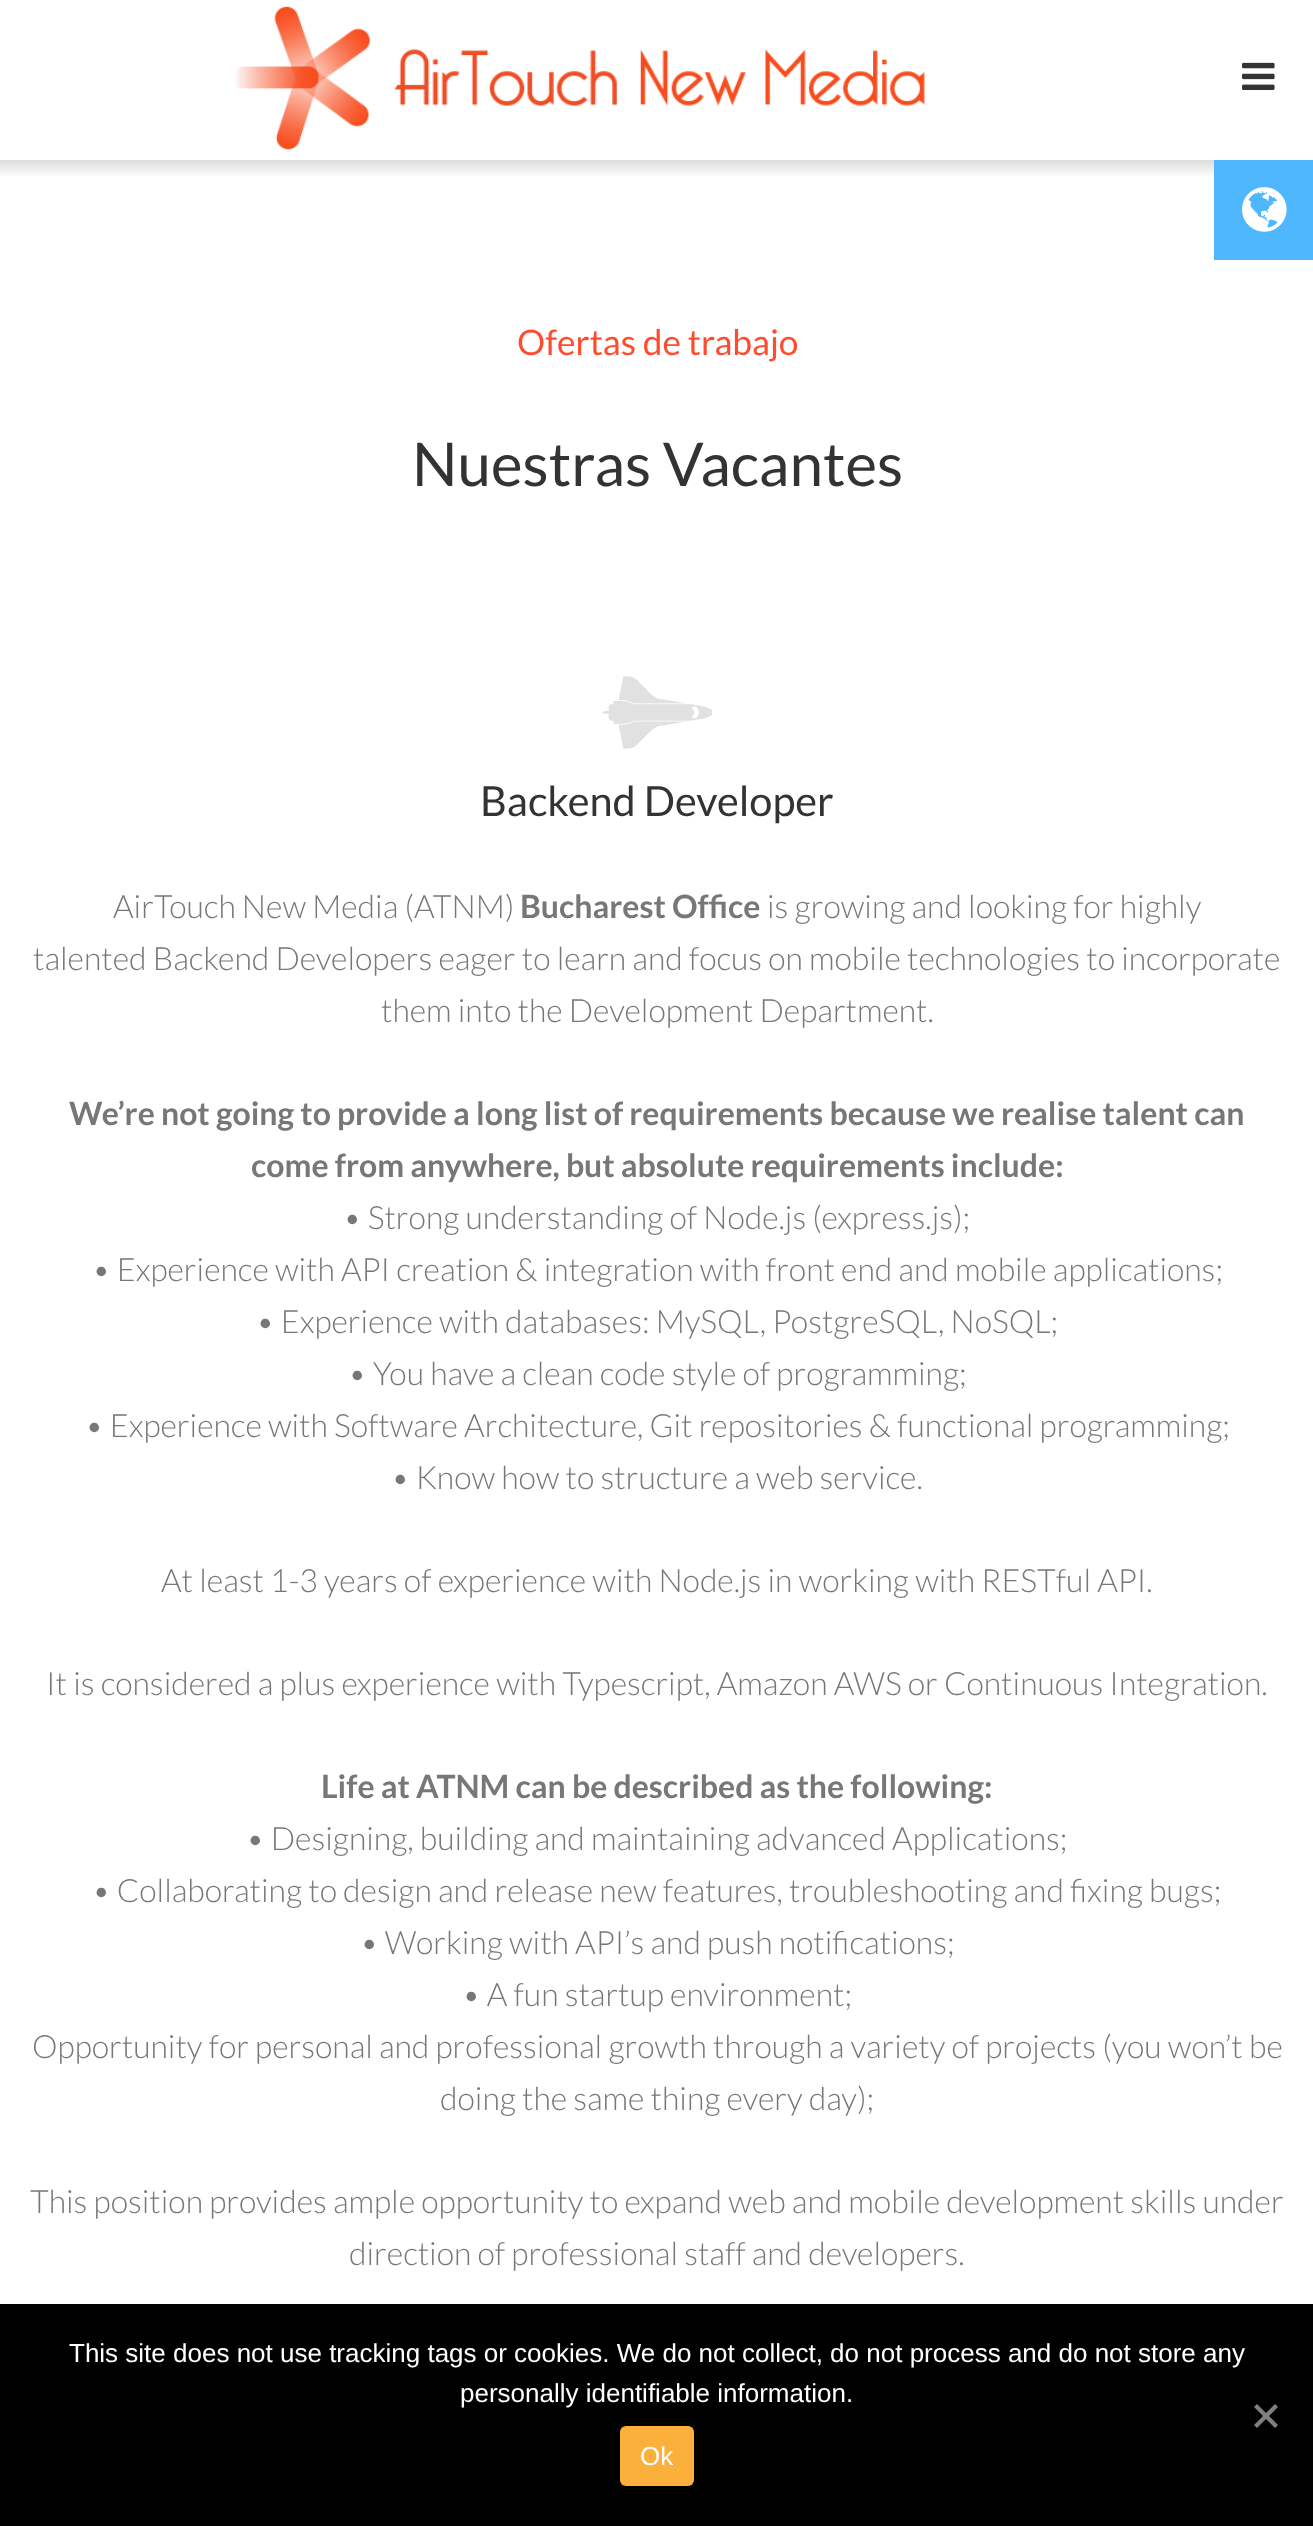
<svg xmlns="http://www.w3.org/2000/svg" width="1313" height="2526">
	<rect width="100%" height="100%" fill="#FFFFFF" />
	<image x="235" y="6" width="690" height="144" href="assets/img1.png" />
	<image x="1242" y="62" width="33" height="28" href="assets/img2.png" />
	<image x="0" y="160" width="1214" height="16" href="assets/img3.png" />
	<rect x="1214" y="160" width="99" height="100" fill="#4EB7FE" />
	<image x="1242" y="187" width="45" height="45" href="assets/img4.png" />
	<text x="517" y="355" font-family="Lato" font-size="35.25" fill="#FF4C2F">Ofertas de trabajo</text>
	<text x="412" y="486" font-family="Lato" font-size="60.25" fill="#333333">Nuestras Vacantes</text>
	<image x="602" y="676" width="110" height="73" href="assets/img5.png" />
	<text x="480" y="816" font-family="Lato" font-size="41.5" fill="#333333">Backend Developer</text>
	<text x="113" y="918" font-family="Lato" font-size="32" font-weight="300" fill="#777777">AirTouch New Media (ATNM)</text>
	<text x="520" y="918" font-family="Lato" font-size="32" font-weight="700" fill="#777777">Bucharest Office</text>
	<g font-family="Lato" font-size="32" font-weight="300" fill="#777777">
		<text x="767" y="918">is growing and looking for highly</text>
		<text x="33" y="970">talented Backend Developers eager to learn and focus on mobile technologies to incorporate</text>
		<text x="381" y="1022">them into the Development Department.</text>
	</g>
	<g font-family="Lato" font-size="32" font-weight="700" fill="#777777">
		<text x="69" y="1125">We’re not going to provide a long list of requirements because we realise talent can</text>
		<text x="251" y="1177">come from anywhere, but absolute requirements include:</text>
	</g>
	<g font-family="Lato" font-size="32" font-weight="300" fill="#777777">
		<text x="343" y="1229">• Strong understanding of Node.js (express.js);</text>
		<text x="92" y="1281">• Experience with API creation &amp; integration with front end and mobile applications;</text>
		<text x="256" y="1333">• Experience with databases: MySQL, PostgreSQL, NoSQL;</text>
		<text x="348" y="1385">• You have a clean code style of programming;</text>
		<text x="85" y="1437">• Experience with Software Architecture, Git repositories &amp; functional programming;</text>
		<text x="391" y="1489">• Know how to structure a web service.</text>
		<text x="161" y="1592">At least 1-3 years of experience with Node.js in working with RESTful API.</text>
		<text x="46" y="1695">It is considered a plus experience with Typescript, Amazon AWS or Continuous Integration.</text>
	</g>
	<text x="321" y="1798" font-family="Lato" font-size="32" font-weight="700" fill="#777777">Life at ATNM can be described as the following:</text>
	<g font-family="Lato" font-size="32" font-weight="300" fill="#777777">
		<text x="246" y="1850">• Designing, building and maintaining advanced Applications;</text>
		<text x="92" y="1902">• Collaborating to design and release new features, troubleshooting and fixing bugs;</text>
		<text x="360" y="1954">• Working with API’s and push notifications;</text>
		<text x="462" y="2006">• A fun startup environment;</text>
		<text x="32" y="2058">Opportunity for personal and professional growth through a variety of projects (you won’t be</text>
		<text x="440" y="2110">doing the same thing every day);</text>
		<text x="30" y="2213">This position provides ample opportunity to expand web and mobile development skills under</text>
		<text x="349" y="2265">direction of professional staff and developers.</text>
	</g>
	<rect x="0" y="2304" width="1313" height="222" fill="#000000" />
	<g font-family="Liberation Sans" font-size="26" fill="#FFFFFF">
		<text x="69" y="2362">This site does not use tracking tags or cookies. We do not collect, do not process and do not store any</text>
		<text x="460" y="2402">personally identifiable information.</text>
	</g>
	<path d="M1275 2404L1278 2407L1257 2428L1254 2425Z" fill="#808080" />
	<path d="M1254 2407L1257 2404L1278 2425L1275 2428Z" fill="#808080" />
	<rect x="620" y="2426" width="74" height="60" rx="6" fill="#FBB03B" />
	<text x="640" y="2465" font-family="Liberation Sans" font-size="26" fill="#FFFFFF">Ok</text>
</svg>
